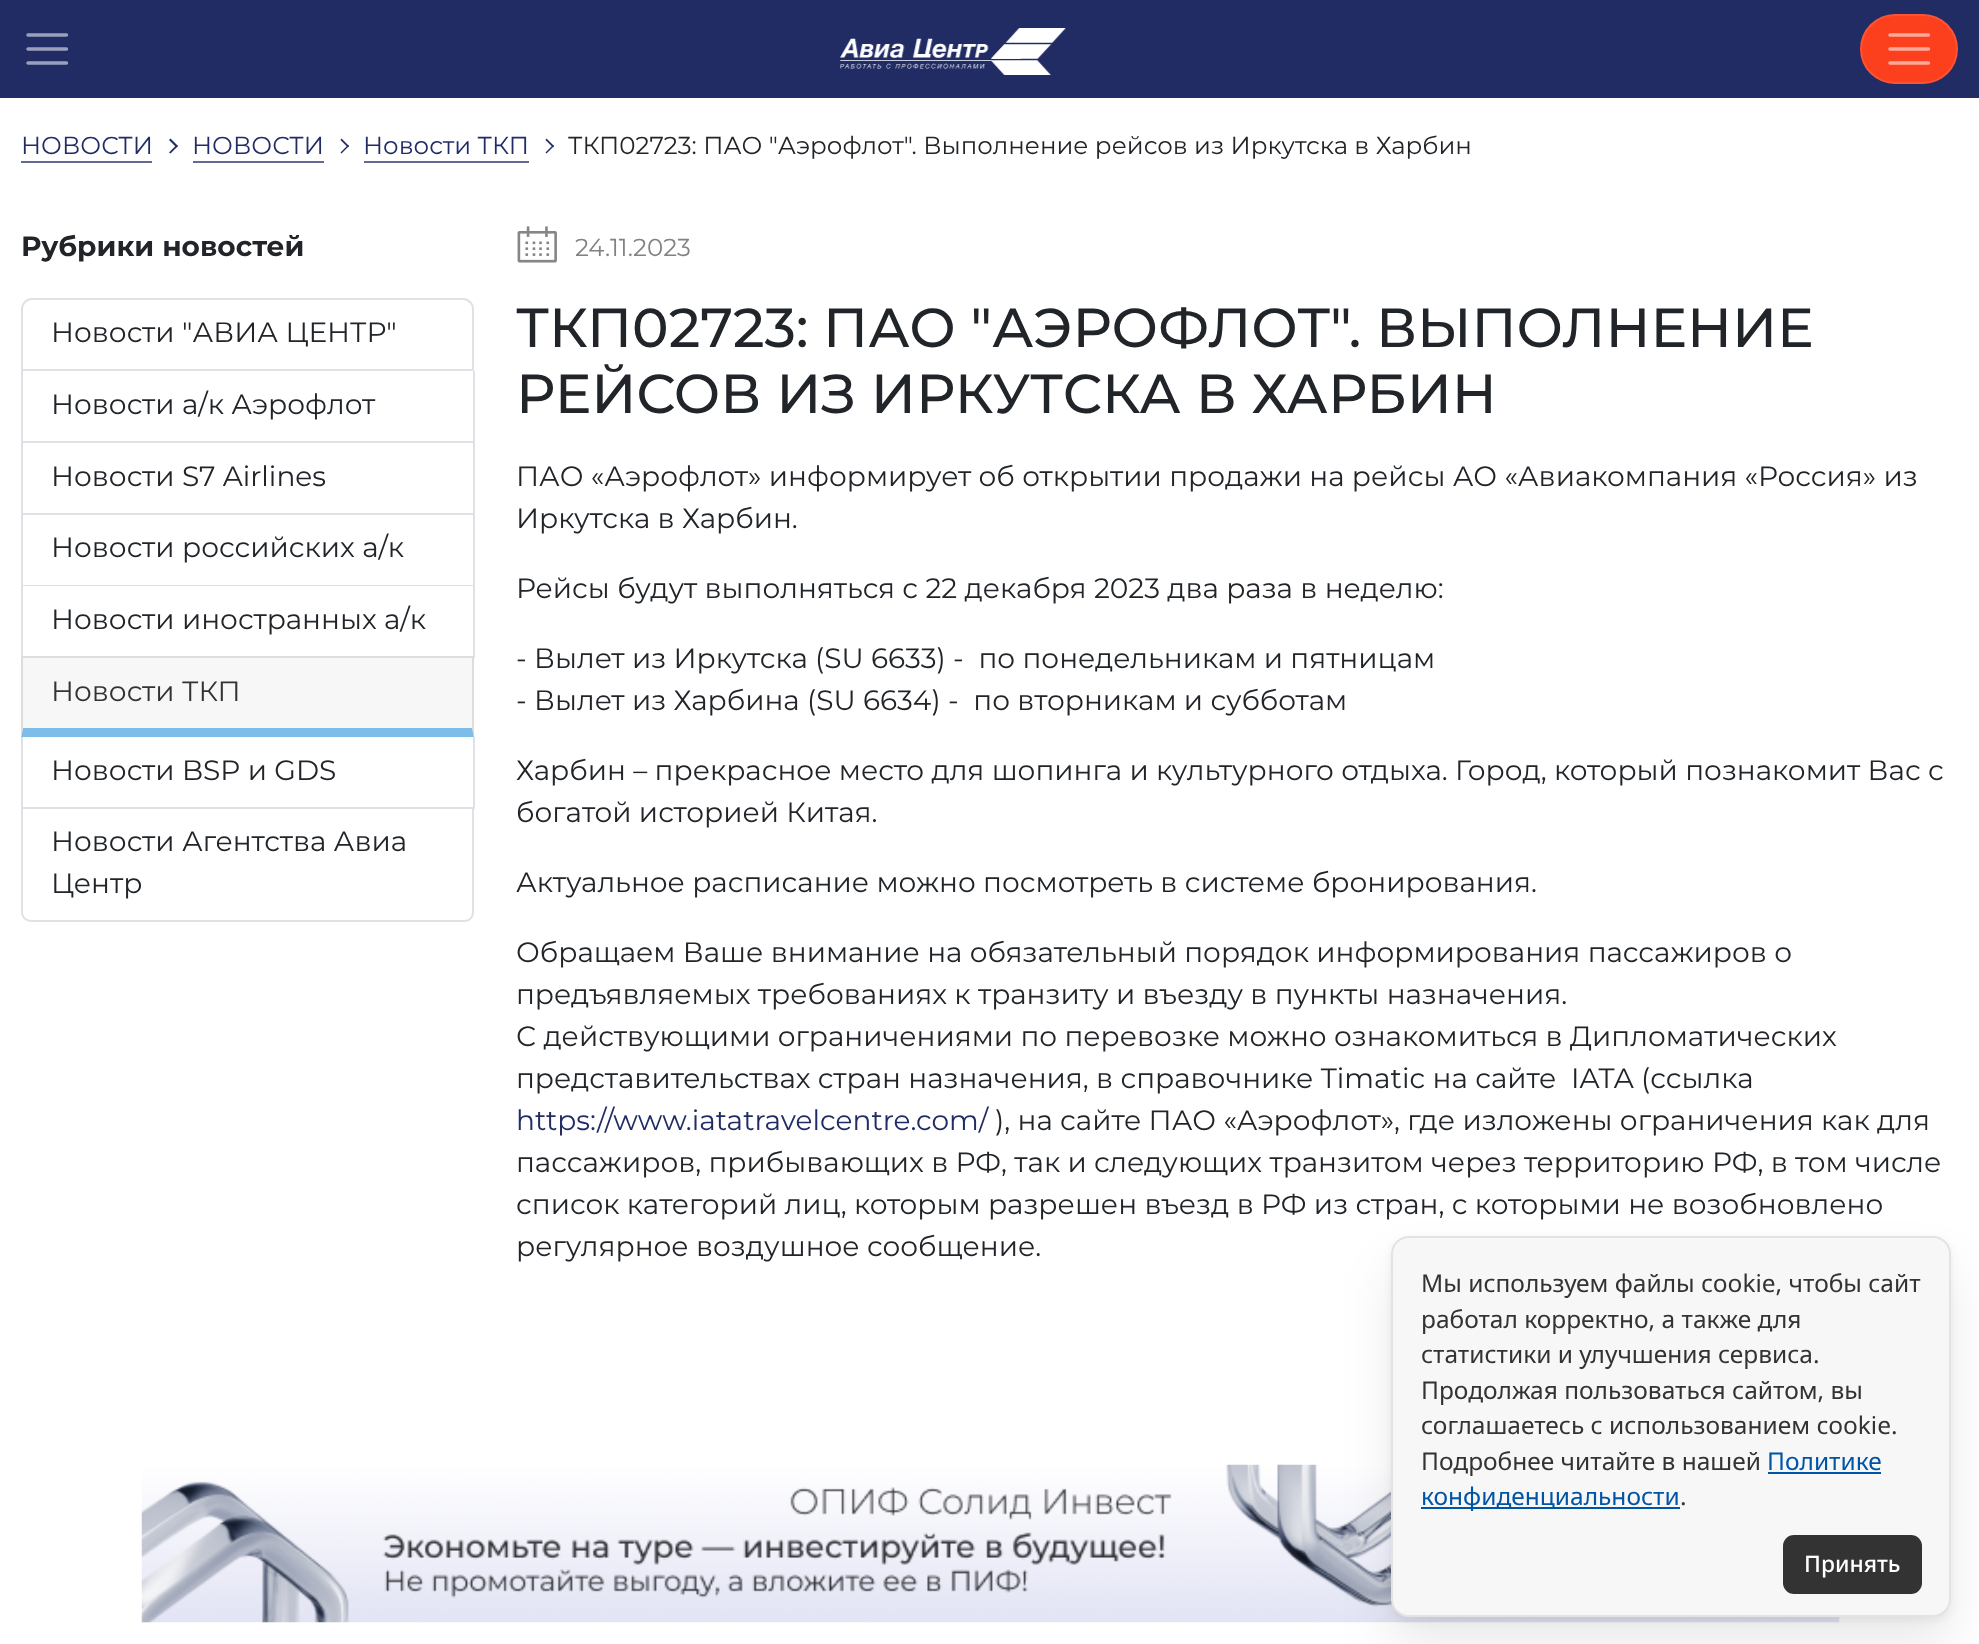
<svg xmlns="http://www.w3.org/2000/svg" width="1979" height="1644">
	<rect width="100%" height="100%" fill="#FFFFFF" />
	<rect x="0" y="0" width="1979" height="98" fill="#212C65" />
	<path d="M28 35H66.5M28 49H66.5M28 63H66.5" fill="none" stroke="#9BA0BA" stroke-width="3.5" stroke-linecap="round" />
	<image x="840" y="28" width="226" height="47" href="assets/img1.png" />
	<rect x="1860" y="14" width="98" height="70" rx="35" fill="#FC401E" />
	<rect x="1861" y="15" width="96" height="68" rx="34" fill="none" stroke="#FFFFFF" stroke-opacity="0.1" stroke-width="2" />
	<path d="M1890 35H1928.5M1890 49H1928.5M1890 63H1928.5" fill="none" stroke="#FEA99A" stroke-width="3.5" stroke-linecap="round" />
	<text x="21" y="154" font-family="Montserrat" font-size="24.5" fill="#212C65">НОВОСТИ</text>
	<rect x="21" y="161" width="131" height="2" fill="#646B93" />
	<path d="M170.5 138.5L178 146L176.5 147.5L169 140Z" fill="#212C65" />
	<path d="M176.5 145L178 146L170.5 153.5L169 152.5Z" fill="#212C65" />
	<text x="192" y="154" font-family="Montserrat" font-size="24.5" fill="#212C65">НОВОСТИ</text>
	<rect x="193" y="161" width="131" height="2" fill="#646B93" />
	<path d="M341.5 138.5L349 146L348 147.5L340.5 140Z" fill="#212C65" />
	<path d="M348 145L349 146L341.5 153.5L340.5 152.5Z" fill="#212C65" />
	<text x="363" y="154" font-family="Montserrat" font-size="24.5" fill="#212C65">Новости ТКП</text>
	<rect x="364" y="161" width="165" height="2" fill="#646B93" />
	<path d="M546.5 138.5L554 146L553 147.5L545.5 140Z" fill="#212C65" />
	<path d="M553 145L554 146L546.5 153.5L545.5 152.5Z" fill="#212C65" />
	<text x="568" y="154" font-family="Montserrat" font-size="24.5" fill="#212529">ТКП02723: ПАО "Аэрофлот". Выполнение рейсов из Иркутска в Харбин</text>
	<text x="21" y="256" font-family="Montserrat" font-size="28" font-weight="700" fill="#212529">Рубрики новостей</text>
	<path d="M32 299H463C468.5 299 473 303.5 473 309V370H22V309C22 303.5 26.5 299 32 299Z" fill="none" stroke="#DEE2E6" stroke-width="2" />
	<text x="51" y="342" font-family="Montserrat" font-size="28" fill="#212529">Новости "АВИА ЦЕНТР"</text>
	<rect x="473" y="371" width="2" height="287" fill="#DEE2E6" />
	<rect x="21" y="441" width="453" height="2" fill="#DEE2E6" />
	<rect x="21" y="371" width="2" height="72" fill="#DEE2E6" />
	<text x="51" y="414" font-family="Montserrat" font-size="28" fill="#212529">Новости а/к Аэрофлот</text>
	<rect x="21" y="513" width="453" height="2" fill="#DEE2E6" />
	<rect x="21" y="443" width="2" height="72" fill="#DEE2E6" />
	<text x="51" y="486" font-family="Montserrat" font-size="28" fill="#212529">Новости S7 Airlines</text>
	<rect x="21" y="585" width="453" height="1" fill="#DEE2E6" />
	<rect x="21" y="515" width="2" height="143" fill="#DEE2E6" />
	<g font-family="Montserrat" font-size="28" fill="#212529">
		<text x="51" y="557">Новости российских а/к</text>
		<text x="51" y="629">Новости иностранных а/к</text>
	</g>
	<rect x="23" y="658" width="449" height="70" fill="#F7F7F7" />
	<rect x="21" y="656" width="453" height="2" fill="#DDDDDD" />
	<path d="M474 656V737L472 728V658Z" fill="#DDDDDD" />
	<path d="M474 737H21L23 728H472Z" fill="#7EBDE8" />
	<path d="M21 737V656L23 658V728Z" fill="#DDDDDD" />
	<text x="51" y="701" font-family="Montserrat" font-size="28" fill="#333333">Новости ТКП</text>
	<rect x="473" y="737" width="2" height="72" fill="#DEE2E6" />
	<rect x="21" y="807" width="453" height="2" fill="#DEE2E6" />
	<rect x="21" y="737" width="2" height="72" fill="#DEE2E6" />
	<text x="51" y="780" font-family="Montserrat" font-size="28" fill="#212529">Новости BSP и GDS</text>
	<path d="M21 808H474V912C474 918 470 922 464 922H32C26 922 21 918 21 912ZM23 808H472V912C472 917 469 920 464 920H32C27 920 23 917 23 912Z" fill="#DEE2E6" fill-rule="evenodd" />
	<g font-family="Montserrat" font-size="28" fill="#212529">
		<text x="51" y="851">Новости Агентства Авиа</text>
		<text x="51" y="893">Центр</text>
	</g>
	<image x="517" y="226" width="40" height="37" href="assets/img2.png" />
	<text x="575" y="256" font-family="Montserrat" font-size="24.5" fill="#828282">24.11.2023</text>
	<g font-family="Montserrat" font-size="54.9" font-weight="500" fill="#212529">
		<text x="516" y="347">ТКП02723: ПАО "АЭРОФЛОТ". ВЫПОЛНЕНИЕ</text>
		<text x="516" y="413">РЕЙСОВ ИЗ ИРКУТСКА В ХАРБИН</text>
	</g>
	<g font-family="Montserrat" font-size="28" fill="#212529">
		<text x="516" y="486">ПАО «Аэрофлот» информирует об открытии продажи на рейсы АО «Авиакомпания «Россия» из</text>
		<text x="516" y="528">Иркутска в Харбин.</text>
		<text x="516" y="598">Рейсы будут выполняться с 22 декабря 2023 два раза в неделю:</text>
		<text x="516" y="668" xml:space="preserve">- Вылет из Иркутска (SU 6633) -  по понедельникам и пятницам</text>
		<text x="516" y="710" xml:space="preserve">- Вылет из Харбина (SU 6634) -  по вторникам и субботам</text>
		<text x="516" y="780">Харбин – прекрасное место для шопинга и культурного отдыха. Город, который познакомит Вас с</text>
		<text x="516" y="822">богатой историей Китая.</text>
		<text x="516" y="892">Актуальное расписание можно посмотреть в системе бронирования.</text>
		<text x="516" y="962">Обращаем Ваше внимание на обязательный порядок информирования пассажиров о</text>
		<text x="516" y="1004">предъявляемых требованиях к транзиту и въезду в пункты назначения.</text>
		<text x="516" y="1046">С действующими ограничениями по перевозке можно ознакомиться в Дипломатических</text>
		<text x="516" y="1088" xml:space="preserve">представительствах стран назначения, в справочнике Timatic на сайте  IATA (ссылка</text>
	</g>
	<text x="516" y="1130" font-family="Montserrat" font-size="28" fill="#212C65">https://www.iatatravelcentre.com/</text>
	<g font-family="Montserrat" font-size="28" fill="#212529">
		<text x="995" y="1130">), на сайте ПАО «Аэрофлот», где изложены ограничения как для</text>
		<text x="516" y="1172">пассажиров, прибывающих в РФ, так и следующих транзитом через территорию РФ, в том числе</text>
		<text x="516" y="1214">список категорий лиц, которым разрешен въезд в РФ из стран, с которыми не возобновлено</text>
		<text x="516" y="1256">регулярное воздушное сообщение.</text>
	</g>
	<image x="141" y="1464" width="1699" height="159" href="assets/img3.png" />
	<rect x="1391" y="1239" width="560" height="382" rx="18" fill="#000000" fill-opacity="0.06" filter="blur(5px)" />
	<rect x="1391" y="1267" width="560" height="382" rx="18" fill="#000000" fill-opacity="0.08" filter="blur(26px)" />
	<rect x="1391" y="1236" width="560" height="381" rx="18" fill="#F7F7F8" />
	<rect x="1392" y="1237" width="558" height="379" rx="17" fill="none" stroke="#000000" stroke-opacity="0.08" stroke-width="2" />
	<g font-family="Noto Sans" font-size="24.5" fill="#333333">
		<text x="1421" y="1292">Мы используем файлы cookie, чтобы сайт</text>
		<text x="1421" y="1328">работал корректно, а также для</text>
		<text x="1421" y="1363">статистики и улучшения сервиса.</text>
		<text x="1421" y="1399">Продолжая пользоваться сайтом, вы</text>
		<text x="1421" y="1434">соглашаетесь с использованием cookie.</text>
		<text x="1421" y="1470">Подробнее читайте в нашей</text>
	</g>
	<text x="1767" y="1470" font-family="Noto Sans" font-size="24.5" fill="#0054A6">Политике</text>
	<rect x="1768" y="1472" width="113" height="2" fill="#0054A6" />
	<rect x="1421" y="1507" width="259" height="2" fill="#0054A6" />
	<text x="1421" y="1505" font-family="Noto Sans" font-size="24.5" fill="#0054A6">конфиденциальности</text>
	<text x="1680" y="1505" font-family="Noto Sans" font-size="24.5" fill="#333333">.</text>
	<rect x="1783" y="1535" width="139" height="59" rx="11" fill="#333333" />
	<text x="1804" y="1572" font-family="Noto Sans" font-size="22.75" font-weight="500" fill="#FFFFFF">Принять</text>
</svg>
